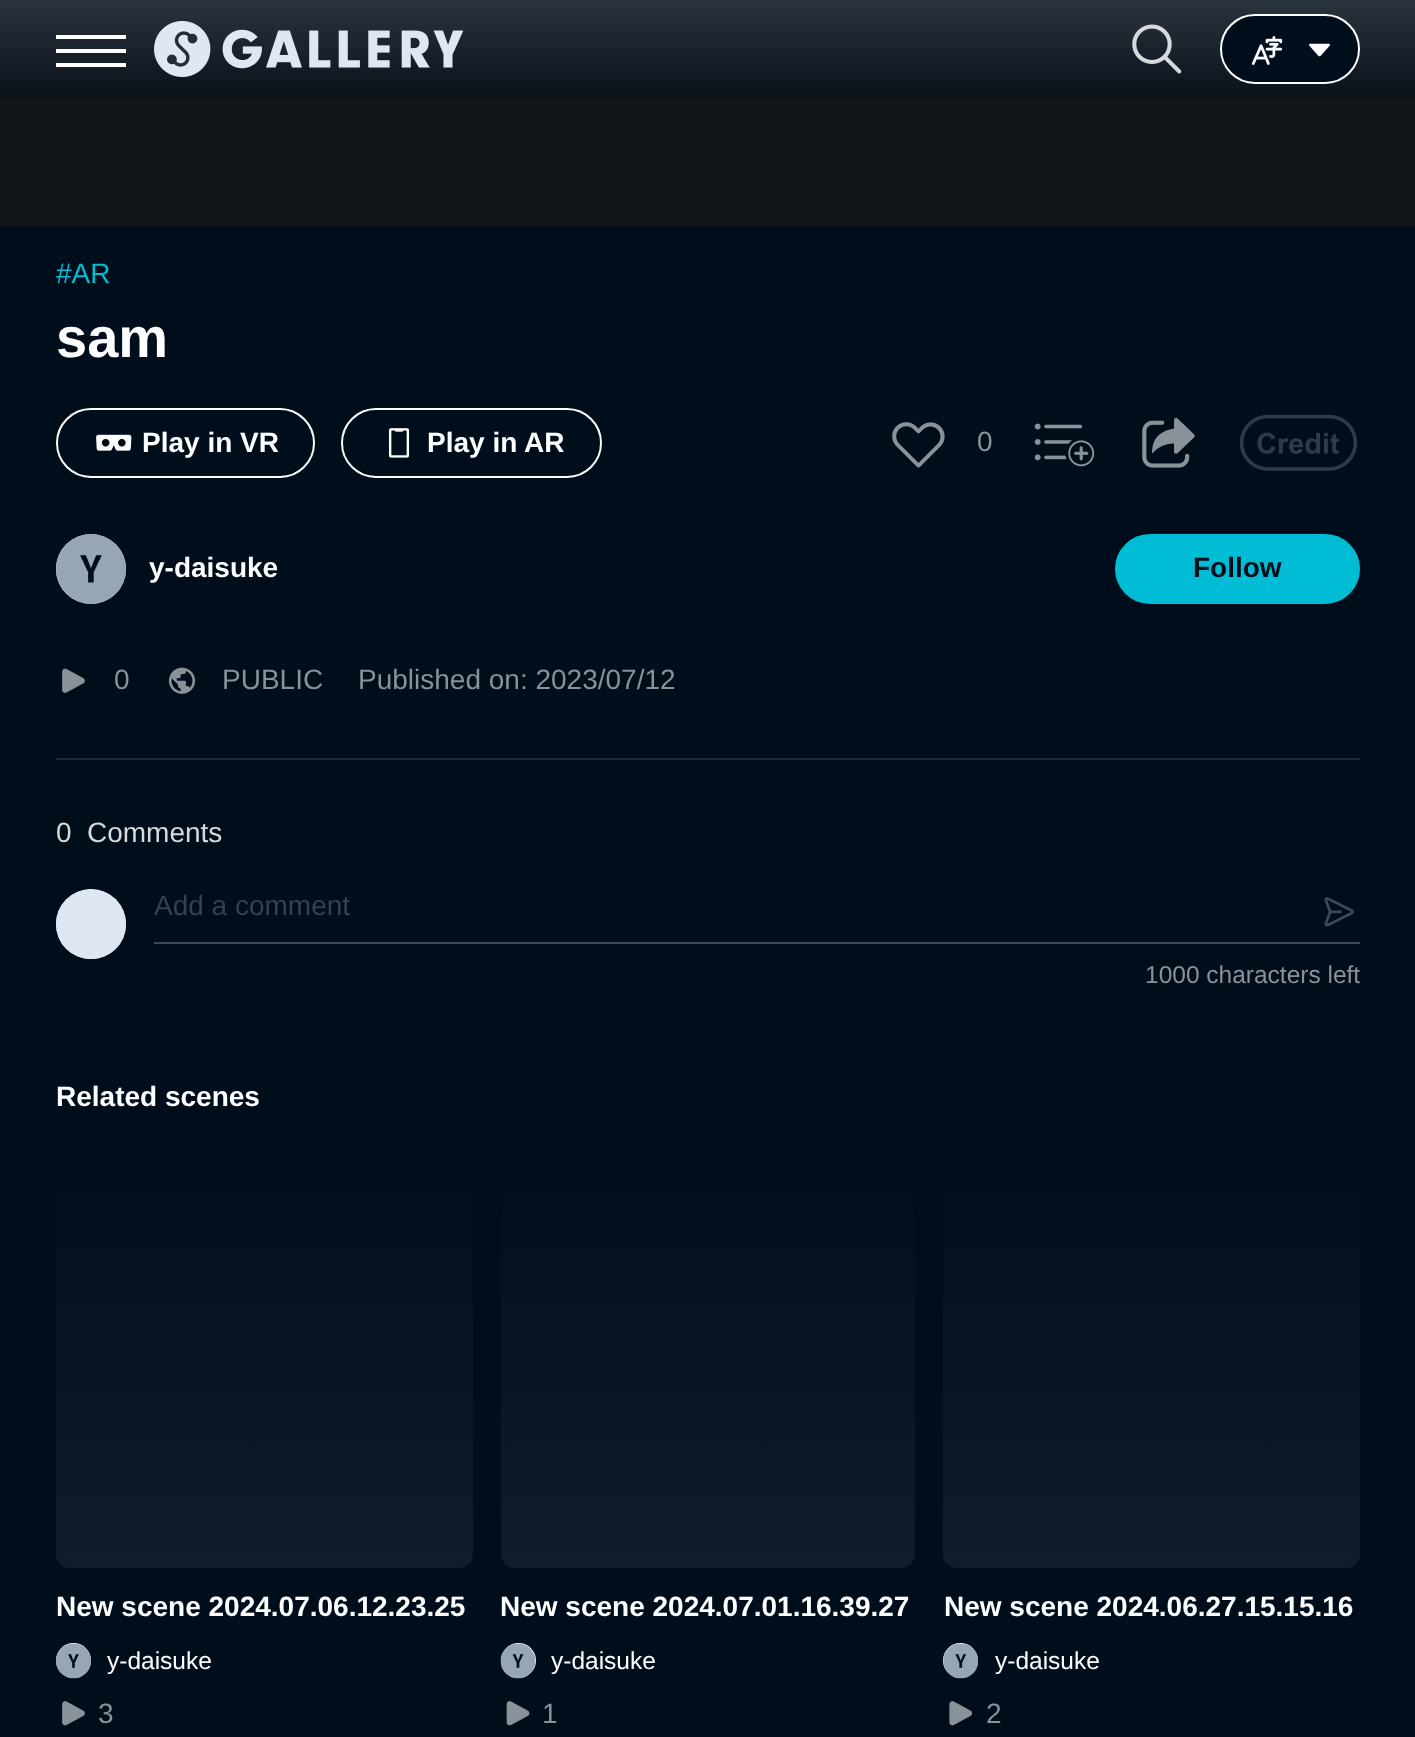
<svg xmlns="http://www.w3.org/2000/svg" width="1415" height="1737">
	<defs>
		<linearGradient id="g1" gradientUnits="userSpaceOnUse" x1="708" y1="0" x2="708" y2="98"><stop offset="0" stop-color="#2B343D" /><stop offset="1" stop-color="#091119" /></linearGradient>
		<linearGradient id="g2" gradientUnits="userSpaceOnUse" x1="264" y1="1568" x2="264" y2="1153"><stop offset="0" stop-color="#0F1C29" /><stop offset="1" stop-color="#000D1A" /></linearGradient>
		<linearGradient id="g3" gradientUnits="userSpaceOnUse" x1="708" y1="1568" x2="708" y2="1153"><stop offset="0" stop-color="#0F1C29" /><stop offset="1" stop-color="#000D1A" /></linearGradient>
		<linearGradient id="g4" gradientUnits="userSpaceOnUse" x1="1152" y1="1568" x2="1152" y2="1153"><stop offset="0" stop-color="#0F1C29" /><stop offset="1" stop-color="#000D1A" /></linearGradient>
	</defs>
	<rect width="100%" height="100%" fill="#000D1A" />
	<rect x="0" y="0" width="1415" height="98" fill="url(#g1)" />
	<rect x="56" y="35" width="70" height="4" fill="#FFFFFF" />
	<rect x="56" y="49" width="70" height="4" fill="#FFFFFF" />
	<rect x="56" y="63" width="70" height="4" fill="#FFFFFF" />
	<image x="154" y="21" width="310" height="56" href="assets/img1.png" />
	<image x="1132" y="24" width="50" height="50" href="assets/img2.png" />
	<rect x="1221" y="15" width="138" height="68" rx="34" fill="#000D1A" stroke="#FCFEFF" stroke-width="2" />
	<image x="1251" y="36" width="32" height="29" href="assets/img3.png" />
	<image x="1309" y="43" width="21" height="14" href="assets/img4.png" />
	<rect x="0" y="98" width="1415" height="128" fill="#111418" />
	<text x="56" y="283" font-family="Liberation Sans" font-size="28" fill="#00BCD4">#AR</text>
	<text x="56" y="357" font-family="Liberation Sans" font-size="56" font-weight="700" fill="#FCFEFF">sam</text>
	<rect x="57" y="409" width="257" height="68" rx="34" fill="none" stroke="#FCFEFF" stroke-width="2" />
	<image x="96" y="434" width="36" height="17" href="assets/img5.png" />
	<text x="142" y="452" font-family="Liberation Sans" font-size="28" font-weight="700" fill="#FCFEFF">Play in VR</text>
	<rect x="342" y="409" width="259" height="68" rx="34" fill="none" stroke="#FCFEFF" stroke-width="2" />
	<image x="388" y="428" width="22" height="30" href="assets/img6.png" />
	<text x="427" y="452" font-family="Liberation Sans" font-size="28" font-weight="700" fill="#FCFEFF">Play in AR</text>
	<image x="892" y="422" width="53" height="46" href="assets/img7.png" />
	<text x="977" y="451" font-family="Liberation Sans" font-size="28" fill="#899199">0</text>
	<image x="1034" y="423" width="61" height="44" href="assets/img8.png" />
	<image x="1142" y="417" width="53" height="51" href="assets/img9.png" />
	<image x="1239" y="414" width="119" height="57" href="assets/img10.png" />
	<circle cx="91" cy="569" r="35" fill="#FFFFFF" />
	<image x="56" y="534" width="70" height="70" href="assets/img11.png" />
	<text x="149" y="577" font-family="Liberation Sans" font-size="28" font-weight="700" fill="#FCFEFF">y-daisuke</text>
	<rect x="1116" y="535" width="243" height="68" rx="34" fill="#00BCD4" stroke="#00BCD4" stroke-width="2" />
	<text x="1193" y="577" font-family="Liberation Sans" font-size="28" font-weight="700" fill="#000D1A">Follow</text>
	<image x="62" y="668" width="23" height="25" href="assets/img12.png" />
	<text x="114" y="689" font-family="Liberation Sans" font-size="28" fill="#899199">0</text>
	<image x="168" y="667" width="28" height="27" href="assets/img13.png" />
	<g font-family="Liberation Sans" font-size="28" fill="#899199">
		<text x="222" y="689">PUBLIC</text>
		<text x="358" y="689">Published on: 2023/07/12</text>
	</g>
	<rect x="56" y="758" width="1304" height="2" fill="#1F2B38" />
	<g font-family="Liberation Sans" font-size="28" fill="#D6DADD">
		<text x="56" y="842">0</text>
		<text x="87" y="842">Comments</text>
	</g>
	<circle cx="91" cy="924" r="35" fill="#FFFFFF" />
	<image x="56" y="889" width="70" height="71" href="assets/img14.png" />
	<rect x="154" y="942" width="1206" height="2" fill="#3D4955" />
	<text x="154" y="915" font-family="Liberation Sans" font-size="28" fill="#35414C">Add a comment</text>
	<image x="1324" y="897" width="30" height="30" href="assets/img15.png" />
	<text x="1145" y="983" font-family="Liberation Sans" font-size="24.5" fill="#899199">1000 characters left</text>
	<text x="56" y="1106" font-family="Liberation Sans" font-size="28" font-weight="700" fill="#FCFEFF">Related scenes</text>
	<rect x="56" y="1153" width="417" height="415" rx="14" fill="url(#g2)" />
	<text x="56" y="1616" font-family="Liberation Sans" font-size="28" font-weight="700" fill="#FCFEFF">New scene 2024.07.06.12.23.25</text>
	<circle cx="73.5" cy="1660.5" r="17.5" fill="#FFFFFF" />
	<image x="56" y="1643" width="35" height="36" href="assets/img16.png" />
	<text x="107" y="1669" font-family="Liberation Sans" font-size="24.5" fill="#FCFEFF">y-daisuke</text>
	<image x="62" y="1701" width="23" height="25" href="assets/img17.png" />
	<text x="98" y="1723" font-family="Liberation Sans" font-size="28" fill="#899199">3</text>
	<rect x="501" y="1153" width="414" height="415" rx="14" fill="url(#g3)" />
	<text x="500" y="1616" font-family="Liberation Sans" font-size="28" font-weight="700" fill="#FCFEFF">New scene 2024.07.01.16.39.27</text>
	<circle cx="518.5" cy="1660.5" r="17.5" fill="#FFFFFF" />
	<image x="500" y="1643" width="36" height="36" href="assets/img18.png" />
	<text x="551" y="1669" font-family="Liberation Sans" font-size="24.5" fill="#FCFEFF">y-daisuke</text>
	<image x="506" y="1701" width="24" height="25" href="assets/img19.png" />
	<text x="542" y="1723" font-family="Liberation Sans" font-size="28" fill="#899199">1</text>
	<rect x="943" y="1153" width="417" height="415" rx="14" fill="url(#g4)" />
	<text x="944" y="1616" font-family="Liberation Sans" font-size="28" font-weight="700" fill="#FCFEFF">New scene 2024.06.27.15.15.16</text>
	<circle cx="960.5" cy="1660.5" r="17.5" fill="#FFFFFF" />
	<image x="943" y="1643" width="36" height="36" href="assets/img20.png" />
	<text x="995" y="1669" font-family="Liberation Sans" font-size="24.5" fill="#FCFEFF">y-daisuke</text>
	<image x="949" y="1701" width="24" height="25" href="assets/img21.png" />
	<text x="986" y="1723" font-family="Liberation Sans" font-size="28" fill="#899199">2</text>
</svg>
